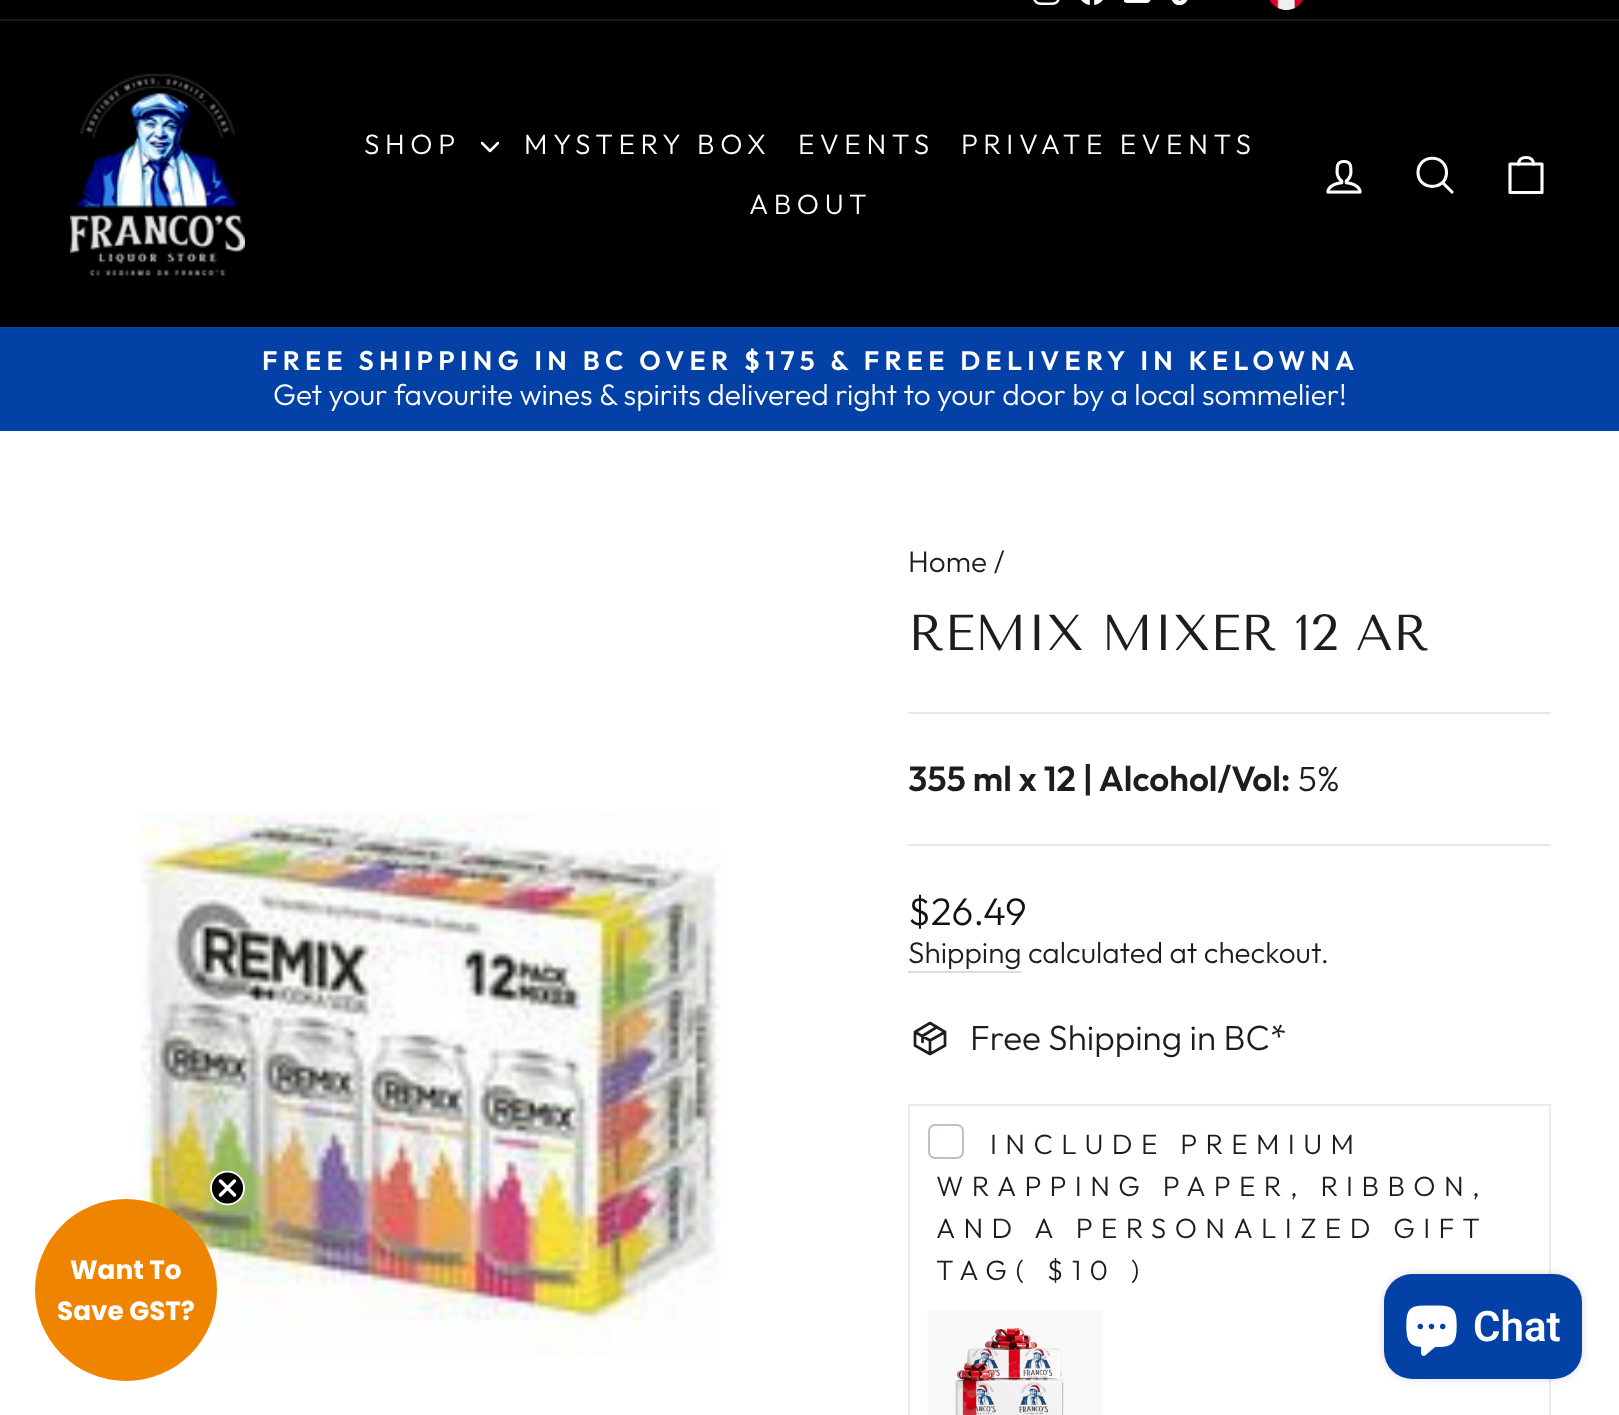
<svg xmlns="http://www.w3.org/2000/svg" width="1619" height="1415">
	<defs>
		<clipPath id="clip1"><rect x="481" y="138" width="18" height="18" /></clipPath>
		<clipPath id="clip2"><rect x="210" y="1171" width="35" height="35" /></clipPath>
	</defs>
	<rect width="100%" height="100%" fill="#FFFFFF" />
	<rect x="0" y="0" width="1619" height="19" fill="#000000" />
	<image x="1033" y="0" width="27" height="5" href="assets/img1.png" />
	<image x="1081" y="0" width="22" height="5" href="assets/img2.png" />
	<image x="1124" y="0" width="27" height="3" href="assets/img3.png" />
	<image x="1171" y="0" width="17" height="5" href="assets/img4.png" />
	<image x="1269" y="0" width="34" height="11" href="assets/img5.png" />
	<rect x="0" y="21" width="1619" height="306" fill="#000000" />
	<rect x="0" y="19" width="1619" height="2" fill="#1A1A1A" />
	<image x="70" y="73" width="175" height="203" href="assets/img6.png" />
	<text x="364" y="154" font-family="Outfit" font-size="28" font-weight="300" letter-spacing="5.6" fill="#FFFFFF">SHOP</text>
	<g clip-path="url(#clip1)">
		<path d="M482 143L490 151L498 143" fill="none" stroke="#FFFFFF" stroke-width="2.5" stroke-linecap="round" stroke-linejoin="round" />
	</g>
	<g font-family="Outfit" font-size="28" font-weight="300" letter-spacing="5.6" fill="#FFFFFF">
		<text x="524" y="154">MYSTERY BOX</text>
		<text x="798" y="154">EVENTS</text>
		<text x="961" y="154">PRIVATE EVENTS</text>
		<text x="749" y="214">ABOUT</text>
	</g>
	<image x="1326" y="160" width="36" height="34" href="assets/img7.png" />
	<path d="M1446.5 172.5C1446.5 191 1418 191 1418 172.5C1418 153.5 1446.5 153.5 1446.5 172.5ZM1452 192L1442.5 182.5" fill="none" stroke="#FFFFFF" stroke-width="3.1" stroke-linecap="round" stroke-linejoin="round" />
	<path d="M1510 164H1542V192.5H1510ZM1518.5 164.5C1518.5 159 1522 157.5 1526 157.5C1530 157.5 1533.5 159 1533.5 164.5" fill="none" stroke="#FFFFFF" stroke-width="3.1" stroke-linecap="round" stroke-linejoin="round" />
	<rect x="0" y="327" width="1619" height="104" fill="#0441A7" />
	<text x="262" y="370" font-family="Outfit" font-size="26.8" font-weight="600" letter-spacing="5.35" fill="#FFFFFF">FREE SHIPPING IN BC OVER $175 &amp; FREE DELIVERY IN KELOWNA</text>
	<text x="273" y="405" font-family="Outfit" font-size="29.75" font-weight="300" fill="#FFFFFF">Get your favourite wines &amp; spirits delivered right to your door by a local sommelier!</text>
	<image x="138" y="810" width="583" height="546" href="assets/img8.png" />
	<text x="908" y="572" font-family="Outfit" font-size="29.75" font-weight="300" fill="#1C1D1D">Home /</text>
	<text x="908" y="650" font-family="Tenor Sans" font-size="50.5" fill="#1C1D1D">REMIX MIXER 12 AR</text>
	<rect x="908" y="712" width="643" height="2" fill="#E8E8E1" />
	<text x="908" y="791" font-family="Outfit" font-size="35" font-weight="600" fill="#1C1D1D">355 ml x 12 | Alcohol/Vol:</text>
	<text x="1298" y="791" font-family="Outfit" font-size="35" font-weight="300" fill="#1C1D1D">5%</text>
	<rect x="908" y="844" width="643" height="2" fill="#E8E8E1" />
	<text x="908" y="925" font-family="Outfit" font-size="38.5" font-weight="300" fill="#121212">$26.49</text>
	<rect x="908" y="971" width="114" height="2" fill="#DDDDDD" />
	<g font-family="Outfit" font-size="29.75" font-weight="300" fill="#1C1D1D">
		<text x="908" y="963">Shipping</text>
		<text x="1028" y="963">calculated at checkout.</text>
	</g>
	<path d="M930 1054L915 1045.5V1032L930 1023L945 1032V1045.5ZM930 1054V1040.5L945 1032M930 1040.5L915 1032M937 1027L922.5 1036V1042" fill="none" stroke="#1C1D1D" stroke-width="2.7" stroke-linecap="round" stroke-linejoin="round" />
	<text x="970" y="1050" font-family="Outfit" font-size="35" font-weight="300" fill="#1C1D1D">Free Shipping in BC*</text>
	<rect x="909" y="1105" width="641" height="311" fill="none" stroke="#EBEBEB" stroke-width="2" />
	<rect x="929" y="1125" width="34" height="33" rx="6" fill="none" stroke="#BDC1C6" stroke-width="2" />
	<g font-family="Outfit" font-size="28" font-weight="300" letter-spacing="8.4" fill="#1C1D1D">
		<text x="990" y="1154">INCLUDE PREMIUM</text>
		<text x="936" y="1196">WRAPPING PAPER, RIBBON,</text>
		<text x="936" y="1238">AND A PERSONALIZED GIFT</text>
		<text x="936" y="1280">TAG( $10 )</text>
	</g>
	<image x="927" y="1310" width="176" height="105" href="assets/img9.png" />
	<circle cx="126" cy="1290" r="91" fill="#EF8400" />
	<circle cx="227.5" cy="1188" r="16.5" fill="#000000" />
	<g clip-path="url(#clip2)">
		<circle cx="227.5" cy="1188" r="16.5" fill="none" stroke="#FFFFFF" stroke-width="1.8" />
	</g>
	<path d="M220.5 1181L234.5 1195M220.5 1195L234.5 1181Z" fill="none" stroke="#FFFFFF" stroke-width="3.5" stroke-linecap="round" stroke-linejoin="round" />
	<g font-family="Poppins" font-size="26.25" font-weight="700" fill="#FFFFFF">
		<text x="70" y="1279">Want To</text>
		<text x="57" y="1320">Save GST?</text>
	</g>
	<rect x="1384" y="1274" width="198" height="105" rx="28" fill="#000000" fill-opacity="0.15" filter="blur(4.5px)" />
	<rect x="1384" y="1274" width="198" height="105" rx="28" fill="#0441A7" />
	<image x="1406" y="1305" width="51" height="51" href="assets/img10.png" />
	<text x="1473" y="1341" font-family="Roboto" font-size="42" font-weight="600" fill="#FFFFFF">Chat</text>
</svg>
